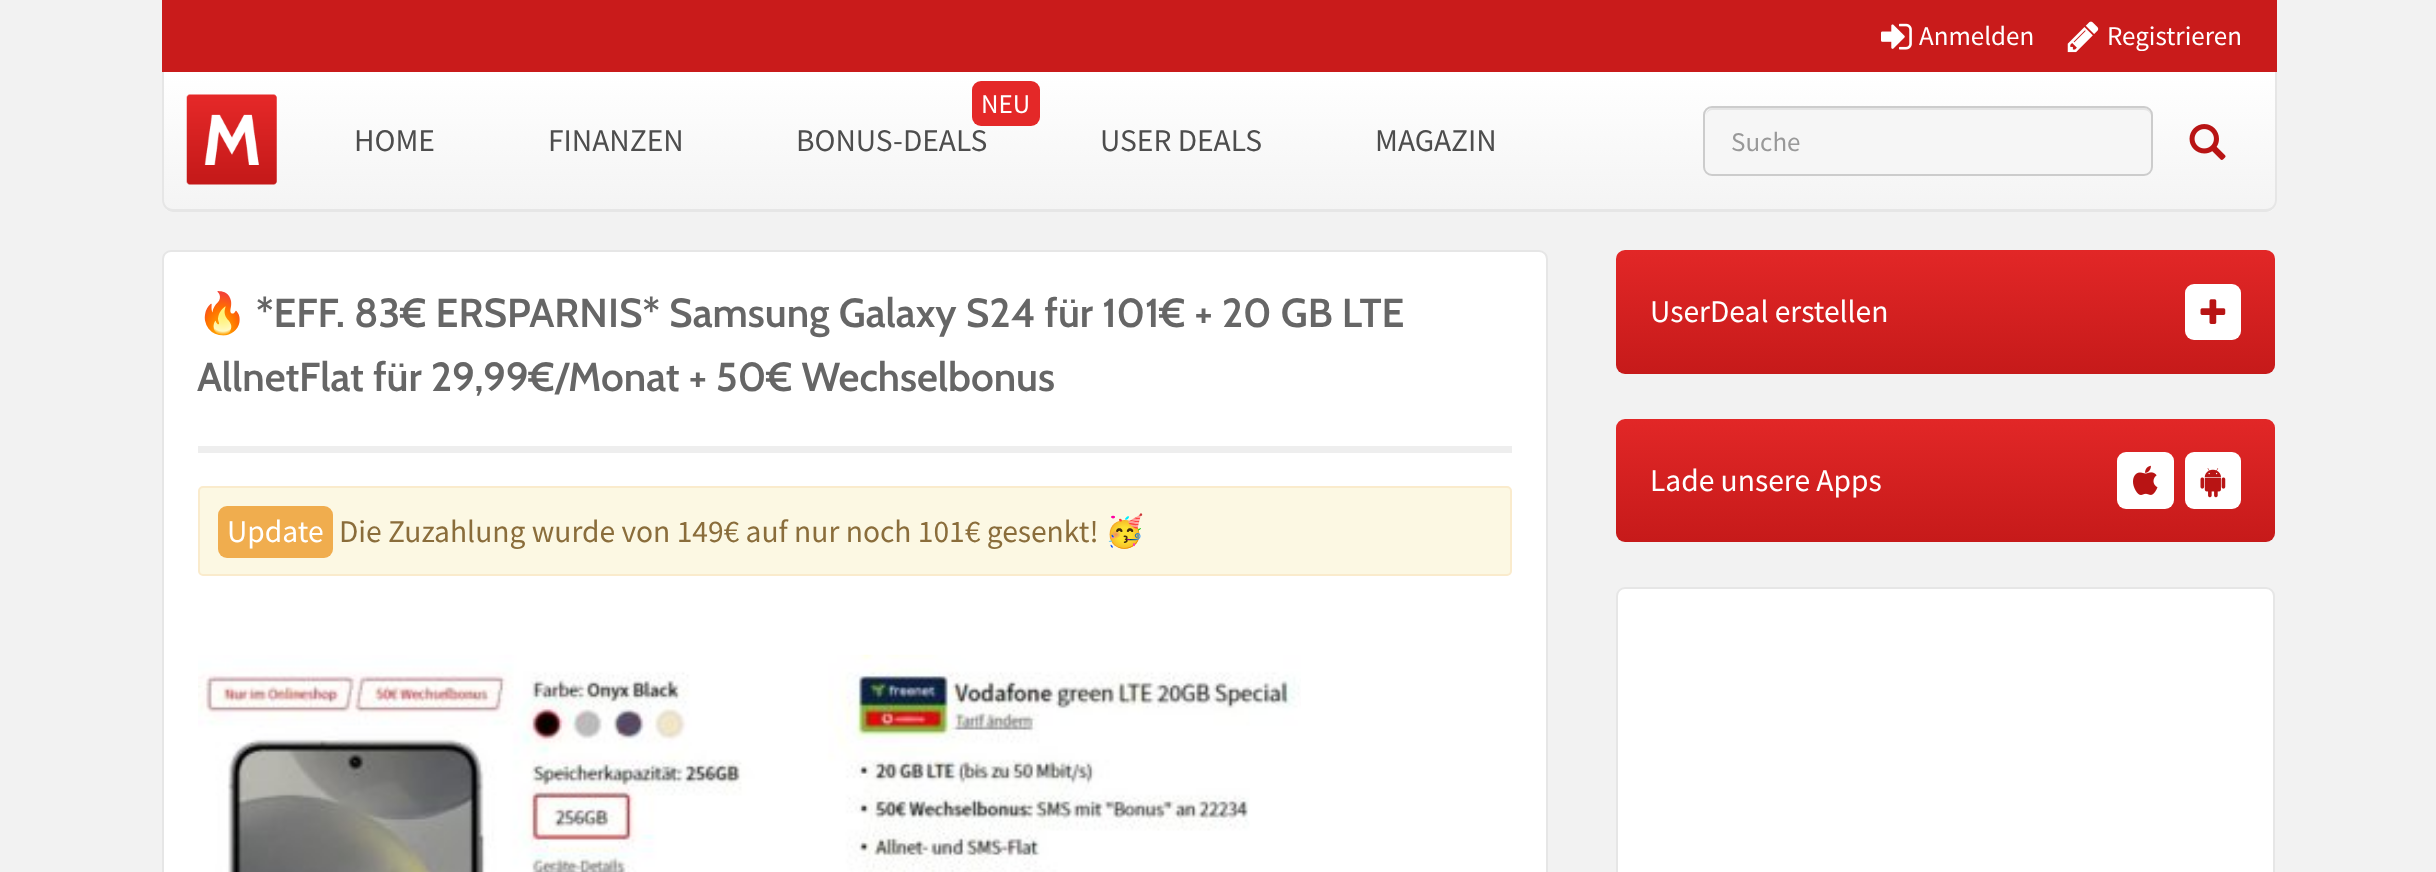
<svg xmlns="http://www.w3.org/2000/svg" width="2436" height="872">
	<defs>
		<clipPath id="clip1"><path d="M162 72H2277V201C2277 207 2272 212 2266 212H173C167 212 162 207 162 201Z" /></clipPath>
		<linearGradient id="g1" gradientUnits="userSpaceOnUse" x1="1220" y1="72" x2="1220" y2="209"><stop offset="0" stop-color="#FFFFFF" /><stop offset="1" stop-color="#F4F4F4" /></linearGradient>
		<linearGradient id="g2" gradientUnits="userSpaceOnUse" x1="1220" y1="209" x2="1220" y2="347"><stop offset="0" stop-color="#FFFFFF" /><stop offset="1" stop-color="#F4F4F4" /></linearGradient>
		<linearGradient id="g3" gradientUnits="userSpaceOnUse" x1="1945" y1="250" x2="1945" y2="374"><stop offset="0" stop-color="#E22727" /><stop offset="1" stop-color="#C61A1A" /></linearGradient>
		<linearGradient id="g4" gradientUnits="userSpaceOnUse" x1="1945" y1="418" x2="1945" y2="542"><stop offset="0" stop-color="#E22727" /><stop offset="1" stop-color="#C61A1A" /></linearGradient>
	</defs>
	<rect width="100%" height="100%" fill="#F2F2F2" />
	<rect x="162" y="0" width="2115" height="72" fill="#C91B1B" />
	<image x="1881" y="23" width="31" height="27" href="assets/img1.png" />
	<text x="1919" y="45" font-family="Source Sans Pro" font-size="27" fill="#FFFFFF">Anmelden</text>
	<image x="2067" y="21" width="32" height="32" href="assets/img2.png" />
	<text x="2107" y="45" font-family="Source Sans Pro" font-size="27" fill="#FFFFFF">Registrieren</text>
	<g clip-path="url(#clip1)">
		<rect x="162" y="72" width="2115" height="137" fill="url(#g1)" />
		<rect x="162" y="209" width="2115" height="3" fill="url(#g2)" />
	</g>
	<path d="M162 72H2277V200C2277 206 2272 212 2266 212H173C167 212 162 206 162 200ZM164 72H2275V200C2275 205 2271 209 2266 209H173C168 209 164 205 164 200Z" fill="#E6E6E6" fill-rule="evenodd" />
	<image x="186" y="94" width="91" height="91" href="assets/img3.png" />
	<g font-family="Source Sans Pro" font-size="31.5" fill="#4D4D4D">
		<text x="354" y="151">HOME</text>
		<text x="548" y="151">FINANZEN</text>
	</g>
	<rect x="972" y="81" width="68" height="45" rx="9" fill="#E42828" />
	<text x="981" y="113" font-family="Source Sans Pro" font-size="27" fill="#FFFFFF">NEU</text>
	<g font-family="Source Sans Pro" font-size="31.5" fill="#4D4D4D">
		<text x="796" y="151">BONUS-DEALS</text>
		<text x="1100" y="151">USER DEALS</text>
		<text x="1375" y="151">MAGAZIN</text>
	</g>
	<rect x="1703" y="106" width="450" height="70" rx="9" fill="#F6F6F6" />
	<path d="M1712 110H2144C2148 110 2151 113 2151 117C2151 113 2149 108 2144 108H1713C1708 108 1706 113 1706 117C1706 113 1709 110 1712 110Z" fill="#E4E4E4" />
	<rect x="1704" y="107" width="448" height="68" rx="8" fill="none" stroke="#CCCCCC" stroke-width="2" />
	<text x="1731" y="151" font-family="Source Sans Pro" font-size="27" fill="#999999">Suche</text>
	<image x="2189" y="124" width="37" height="36" href="assets/img4.png" />
	<rect x="163" y="251" width="1384" height="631" rx="8" fill="#FFFFFF" stroke="#E6E6E6" stroke-width="2" />
	<text x="197" y="327" font-family="Noto Color Emoji" font-size="40.5" font-weight="700" fill="#666666">🔥</text>
	<g font-family="Cabin" font-size="40.5" font-weight="600" fill="#666666">
		<text x="256" y="327">*EFF. 83€ ERSPARNIS* Samsung Galaxy S24 für 101€ + 20 GB LTE</text>
		<text x="197" y="391">AllnetFlat für 29,99€/Monat + 50€ Wechselbonus</text>
	</g>
	<rect x="198" y="446" width="1314" height="7" fill="#EEEEEE" />
	<rect x="199" y="487" width="1312" height="88" rx="4" fill="#FCF8E3" stroke="#FAEBCC" stroke-width="2" />
	<rect x="218" y="506" width="115" height="52" rx="9" fill="#F0AD4E" />
	<text x="227" y="542" font-family="Source Sans Pro" font-size="31.5" fill="#FFFFFF">Update</text>
	<text x="339" y="542" font-family="Source Sans Pro" font-size="31.5" fill="#8A6D3B">Die Zuzahlung wurde von 149€ auf nur noch 101€ gesenkt!</text>
	<text x="1105" y="542" font-family="Noto Color Emoji" font-size="31.5" fill="#8A6D3B">🥳</text>
	<image x="198" y="654" width="1103" height="218" href="assets/img5.png" />
	<rect x="1616" y="250" width="659" height="124" rx="9" fill="url(#g3)" />
	<text x="1650" y="322" font-family="Source Sans Pro" font-size="31.5" fill="#FFFFFF">UserDeal erstellen</text>
	<rect x="2185" y="284" width="56" height="56" rx="9" fill="#FFFFFF" />
	<image x="2200" y="299" width="26" height="25" href="assets/img6.png" />
	<rect x="1616" y="419" width="659" height="123" rx="9" fill="url(#g4)" />
	<text x="1650" y="491" font-family="Source Sans Pro" font-size="31.5" fill="#FFFFFF">Lade unsere Apps</text>
	<rect x="2117" y="452" width="57" height="57" rx="9" fill="#FFFFFF" />
	<image x="2133" y="465" width="25" height="30" href="assets/img7.png" />
	<rect x="2185" y="452" width="56" height="57" rx="9" fill="#FFFFFF" />
	<image x="2200" y="468" width="26" height="30" href="assets/img8.png" />
	<rect x="1617" y="588" width="657" height="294" rx="8" fill="#FFFFFF" stroke="#E6E6E6" stroke-width="2" />
</svg>
